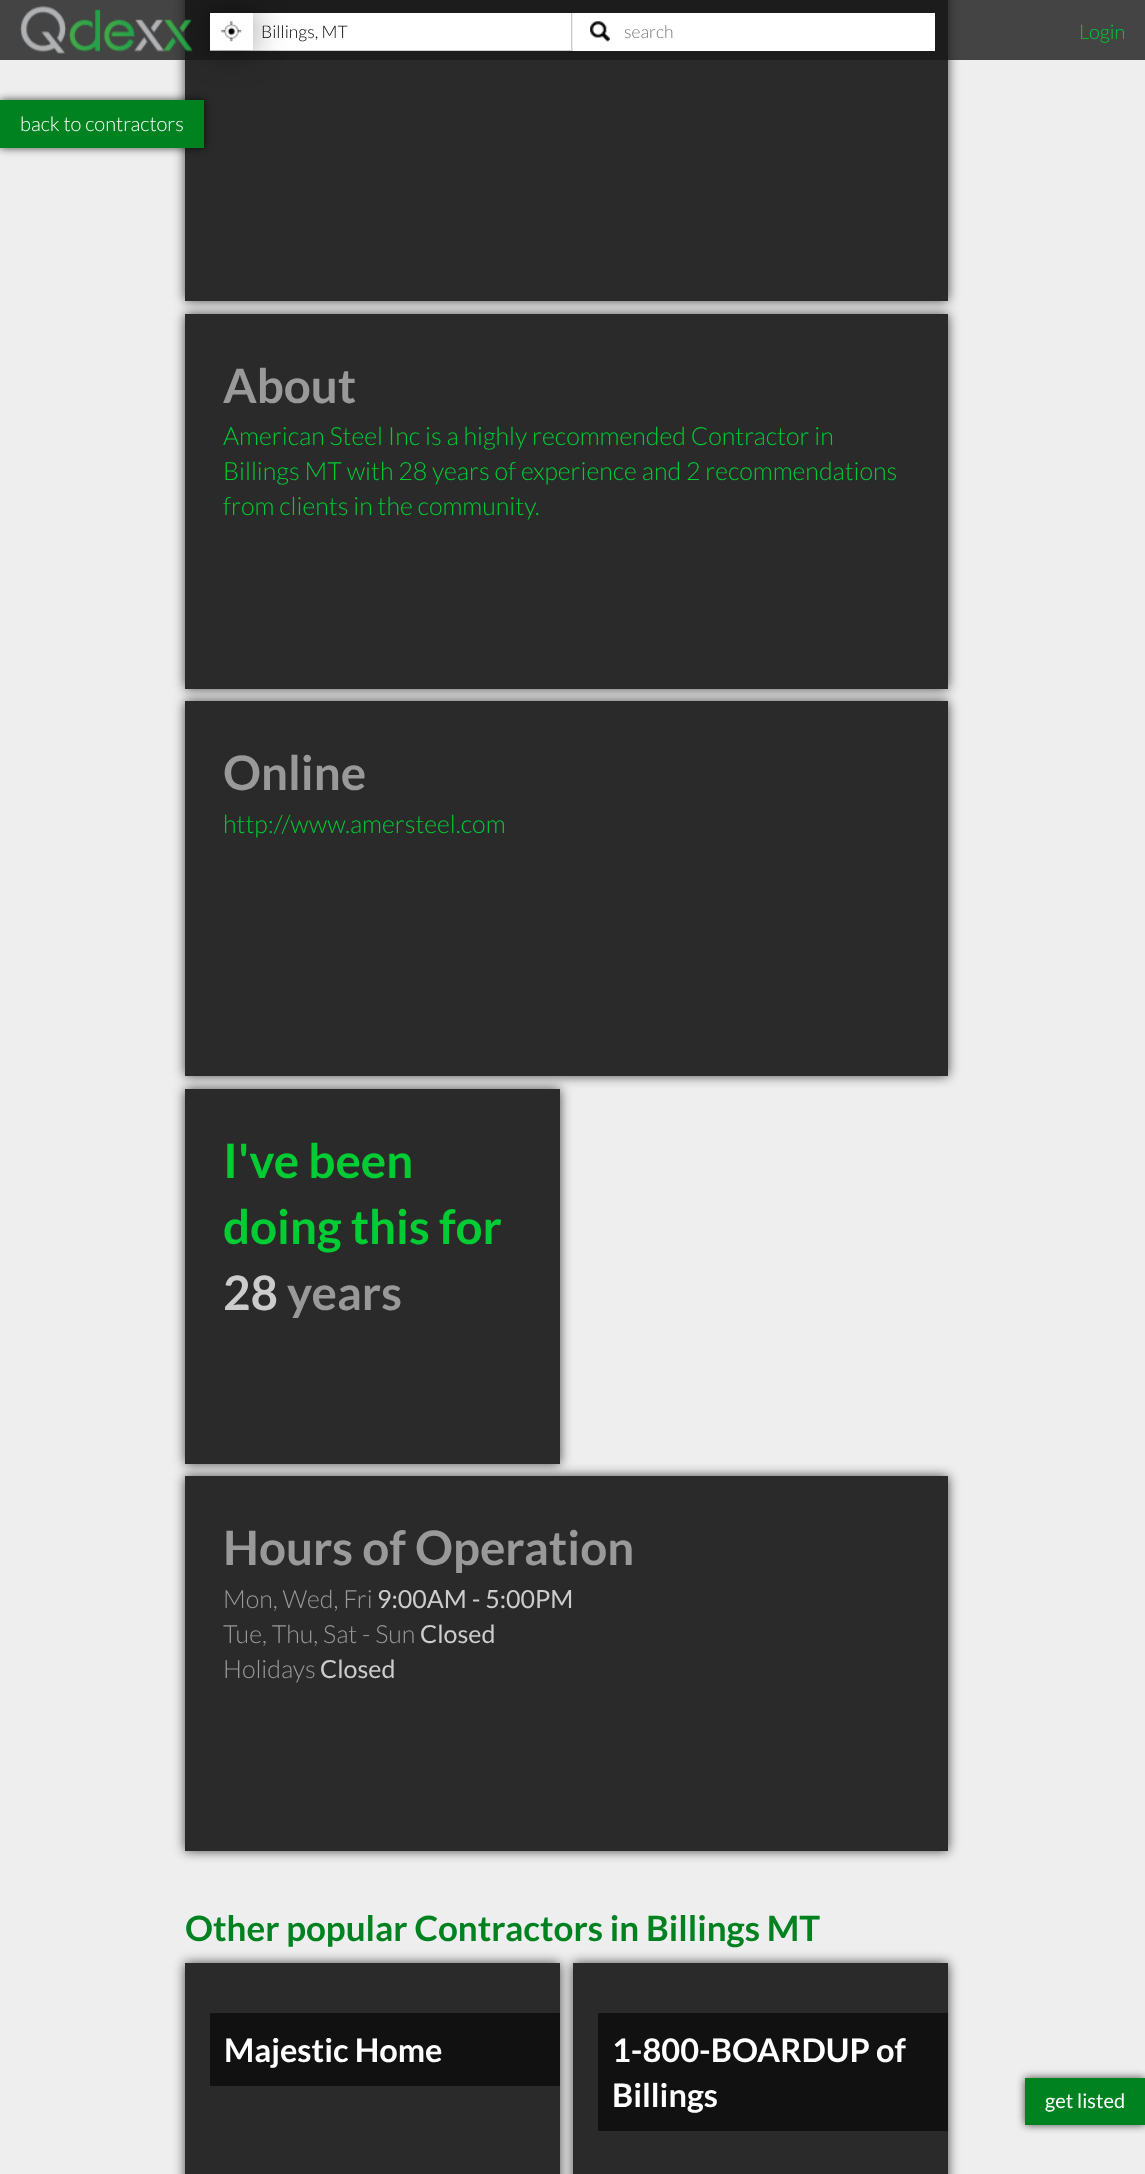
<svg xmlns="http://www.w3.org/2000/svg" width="1145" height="2174">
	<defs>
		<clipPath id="clip1"><path d="M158 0H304V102H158ZM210 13H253V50H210Z" clip-rule="evenodd" /></clipPath>
	</defs>
	<rect width="100%" height="100%" fill="#EEEEEE" />
	<rect x="185" y="-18" width="763" height="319" fill="#000000" fill-opacity="0.7" filter="blur(6px)" />
	<rect x="185" y="0" width="763" height="301" fill="#2A2A2A" />
	<rect x="0" y="0" width="1145" height="60" fill="#191919" fill-opacity="0.8" />
	<image x="20" y="6" width="173" height="48" href="assets/img1.png" />
	<rect x="573" y="13" width="362" height="38" fill="#FFFFFF" />
	<rect x="572" y="13" width="1" height="37" fill="#EEEEEE" />
	<rect x="571" y="13" width="1" height="38" fill="#CCCCCC" />
	<rect x="210" y="50" width="363" height="1" fill="#CCCCCC" />
	<rect x="210" y="13" width="361" height="37" fill="#FFFFFF" />
	<rect x="0" y="100" width="204" height="48" fill="#000000" fill-opacity="0.7" filter="blur(4.5px)" />
	<rect x="0" y="100" width="204" height="48" fill="#008221" />
	<g clip-path="url(#clip1)">
		<rect x="216" y="19" width="30" height="25" fill="#000000" filter="blur(19px)" />
	</g>
	<image x="221" y="21" width="21" height="21" href="assets/img2.png" />
	<text x="261" y="38" font-family="Lato" font-size="17.5" font-weight="300" fill="#000000">Billings, MT</text>
	<image x="590" y="21" width="20" height="21" href="assets/img3.png" />
	<text x="624" y="38" font-family="Lato" font-size="17.5" font-weight="300" fill="#757575">search</text>
	<text x="1079" y="39" font-family="Lato" font-size="20" font-weight="300" fill="#00CC33">Login</text>
	<text x="20" y="131" font-family="Lato" font-size="20" font-weight="300" fill="#FFFFFF">back to contractors</text>
	<rect x="185" y="314" width="763" height="375" fill="#000000" fill-opacity="0.7" filter="blur(6px)" />
	<rect x="185" y="314" width="763" height="375" fill="#2A2A2A" />
	<text x="223" y="403" font-family="Lato" font-size="47.5" font-weight="700" fill="#999999">About</text>
	<g font-family="Lato" font-size="25" font-weight="300" fill="#00CC33">
		<text x="223" y="445">American Steel Inc is a highly recommended Contractor in</text>
		<text x="223" y="480">Billings MT with 28 years of experience and 2 recommendations</text>
		<text x="223" y="515">from clients in the community.</text>
	</g>
	<rect x="185" y="701" width="763" height="375" fill="#000000" fill-opacity="0.7" filter="blur(6px)" />
	<rect x="185" y="701" width="763" height="375" fill="#2A2A2A" />
	<text x="223" y="790" font-family="Lato" font-size="47.5" font-weight="700" fill="#999999">Online</text>
	<text x="223" y="833" font-family="Lato" font-size="25" font-weight="300" fill="#00CC33">http://www.amersteel.com</text>
	<rect x="185" y="1089" width="375" height="375" fill="#000000" fill-opacity="0.7" filter="blur(6px)" />
	<rect x="185" y="1089" width="375" height="375" fill="#2A2A2A" />
	<g font-family="Lato" font-size="47.5" font-weight="700" fill="#00CC33">
		<text x="223" y="1178">I've been</text>
		<text x="223" y="1244">doing this for</text>
	</g>
	<text x="223" y="1310" font-family="Lato" font-size="47.5" font-weight="700" fill="#CCCCCC">28</text>
	<text x="287" y="1310" font-family="Lato" font-size="47.5" font-weight="700" fill="#999999">years</text>
	<rect x="185" y="1476" width="763" height="375" fill="#000000" fill-opacity="0.7" filter="blur(6px)" />
	<rect x="185" y="1476" width="763" height="375" fill="#2A2A2A" />
	<text x="223" y="1565" font-family="Lato" font-size="47.5" font-weight="700" fill="#999999">Hours of Operation</text>
	<text x="223" y="1608" font-family="Lato" font-size="25" font-weight="300" fill="#999999">Mon, Wed, Fri</text>
	<text x="377" y="1608" font-family="Lato" font-size="25" fill="#CCCCCC">9:00AM - 5:00PM</text>
	<text x="223" y="1643" font-family="Lato" font-size="25" font-weight="300" fill="#999999">Tue, Thu, Sat - Sun</text>
	<text x="420" y="1643" font-family="Lato" font-size="25" fill="#CCCCCC">Closed</text>
	<text x="223" y="1678" font-family="Lato" font-size="25" font-weight="300" fill="#999999">Holidays</text>
	<text x="320" y="1678" font-family="Lato" font-size="25" fill="#CCCCCC">Closed</text>
	<text x="185" y="1941" font-family="Lato" font-size="35" font-weight="700" fill="#008221">Other popular Contractors in Billings MT</text>
	<rect x="185" y="1963" width="375" height="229" fill="#000000" fill-opacity="0.7" filter="blur(6px)" />
	<rect x="185" y="1963" width="375" height="211" fill="#2A2A2A" />
	<rect x="210" y="2013" width="350" height="73" fill="#111111" />
	<text x="224" y="2062" font-family="Lato" font-size="32.5" font-weight="700" fill="#FFFFFF">Majestic Home</text>
	<rect x="573" y="1963" width="375" height="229" fill="#000000" fill-opacity="0.7" filter="blur(6px)" />
	<rect x="573" y="1963" width="375" height="211" fill="#2A2A2A" />
	<rect x="598" y="2013" width="350" height="118" fill="#111111" />
	<g font-family="Lato" font-size="32.5" font-weight="700" fill="#FFFFFF">
		<text x="612" y="2062">1-800-BOARDUP of</text>
		<text x="612" y="2107">Billings</text>
	</g>
	<rect x="1025" y="2078" width="120" height="47" fill="#000000" fill-opacity="0.7" filter="blur(4.5px)" />
	<rect x="1025" y="2078" width="120" height="47" fill="#008221" />
	<text x="1045" y="2108" font-family="Lato" font-size="20" fill="#FFFFFF">get listed</text>
</svg>
